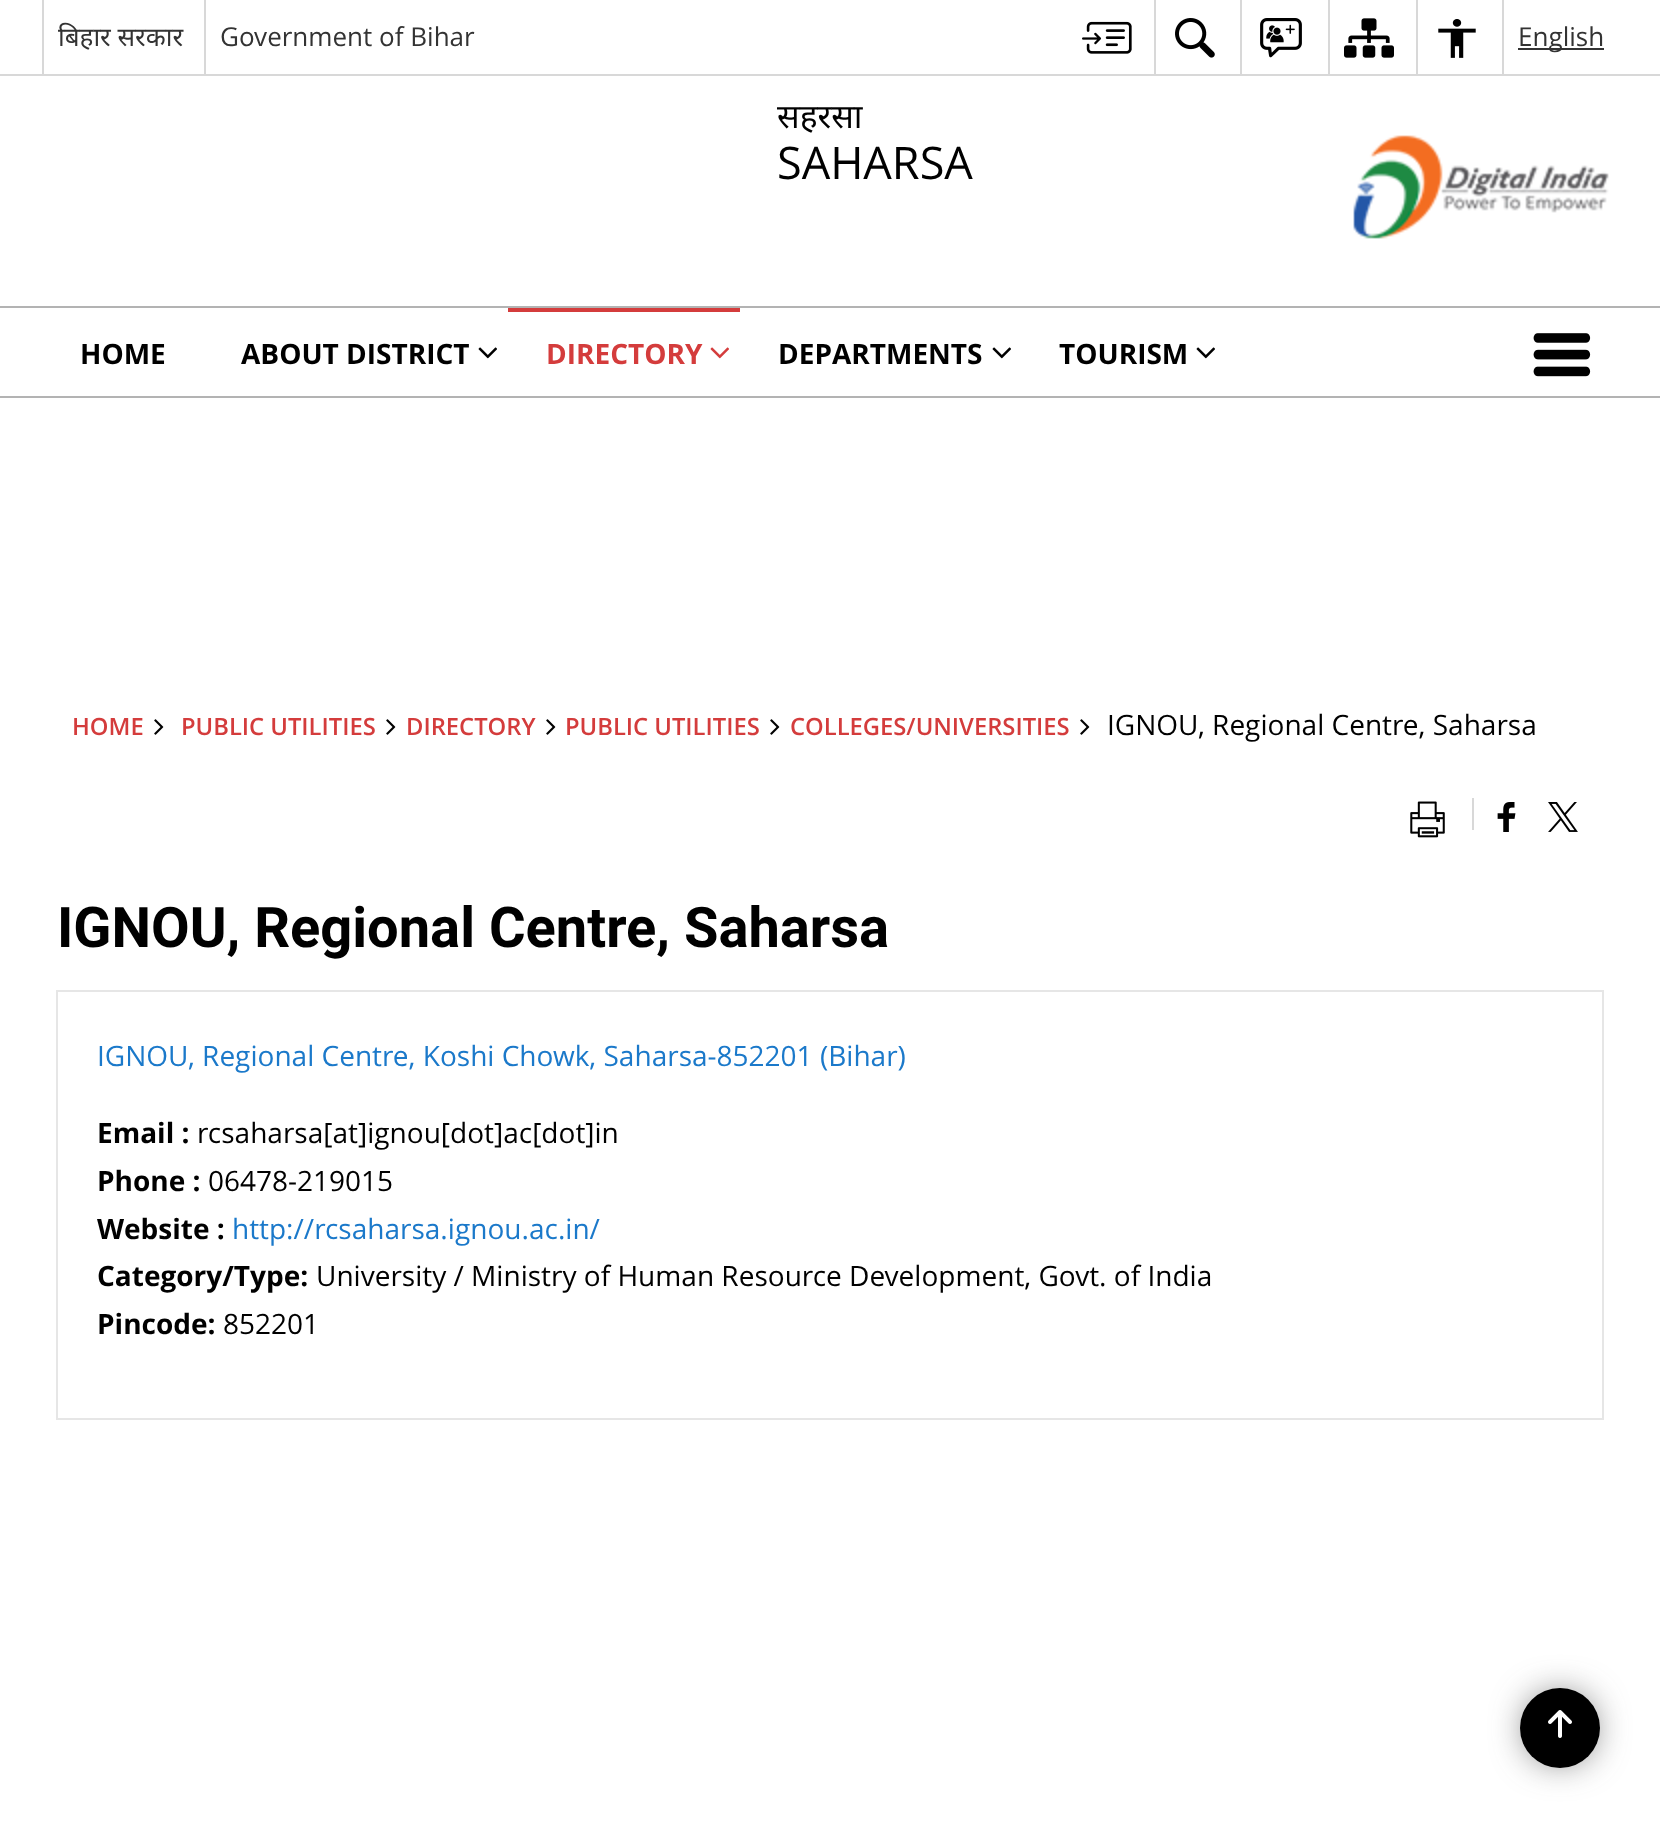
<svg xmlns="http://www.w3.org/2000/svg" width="1660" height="1827">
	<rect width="100%" height="100%" fill="#FFFFFF" />
	<rect x="0" y="74" width="1660" height="2" fill="#D8D8D8" />
	<rect x="42" y="0" width="2" height="74" fill="#D8D8D8" />
	<text x="58" y="46" font-family="Noto Sans" font-size="26" fill="#333333">बिहार सरकार</text>
	<rect x="204" y="0" width="2" height="74" fill="#D8D8D8" />
	<text x="220" y="46" font-family="Open Sans" font-size="26" fill="#333333">Government of Bihar</text>
	<image x="1082" y="21" width="50" height="33" href="assets/img1.png" />
	<rect x="1154" y="0" width="2" height="74" fill="#D8D8D8" />
	<image x="1175" y="18" width="40" height="40" href="assets/img2.png" />
	<rect x="1240" y="0" width="2" height="74" fill="#D8D8D8" />
	<image x="1260" y="18" width="42" height="40" href="assets/img3.png" />
	<rect x="1328" y="0" width="2" height="74" fill="#D8D8D8" />
	<image x="1344" y="18" width="50" height="40" href="assets/img4.png" />
	<rect x="1416" y="0" width="2" height="74" fill="#D8D8D8" />
	<image x="1438" y="19" width="38" height="39" href="assets/img5.png" />
	<rect x="1502" y="0" width="2" height="74" fill="#D8D8D8" />
	<rect x="1518" y="48" width="86" height="2" fill="#333333" />
	<text x="1518" y="46" font-family="Open Sans" font-size="26" fill="#333333">English</text>
	<text x="777" y="128" font-family="Noto Sans" font-size="33.5" fill="#000000">सहरसा</text>
	<text x="777" y="179" font-family="Open Sans" font-size="45" fill="#000000">SAHARSA</text>
	<image x="1353" y="135" width="256" height="104" href="assets/img6.png" />
	<rect x="0" y="306" width="1660" height="2" fill="#B3B3B3" />
	<rect x="0" y="396" width="1660" height="2" fill="#B3B3B3" />
	<g font-family="Open Sans" font-size="28" font-weight="700" fill="#000000">
		<text x="80" y="364">HOME</text>
		<text x="241" y="364">ABOUT DISTRICT</text>
	</g>
	<image x="478" y="347" width="19" height="12" href="assets/img7.png" />
	<rect x="508" y="308" width="232" height="4" fill="#D43C3C" />
	<text x="546" y="364" font-family="Open Sans" font-size="28" font-weight="700" fill="#D43C3C">DIRECTORY</text>
	<image x="710" y="347" width="19" height="12" href="assets/img8.png" />
	<text x="778" y="364" font-family="Open Sans" font-size="28" font-weight="700" fill="#000000">DEPARTMENTS</text>
	<image x="992" y="347" width="19" height="12" href="assets/img7.png" />
	<text x="1059" y="364" font-family="Open Sans" font-size="28" font-weight="700" fill="#000000">TOURISM</text>
	<image x="1196" y="347" width="19" height="12" href="assets/img7.png" />
	<image x="1533" y="333" width="58" height="44" href="assets/img9.png" />
	<text x="72" y="735" font-family="Open Sans" font-size="23.75" font-weight="600" fill="#D43C3C">HOME</text>
	<image x="154" y="719" width="10" height="16" href="assets/img10.png" />
	<text x="181" y="735" font-family="Open Sans" font-size="23.75" font-weight="600" fill="#D43C3C">PUBLIC UTILITIES</text>
	<image x="386" y="719" width="10" height="16" href="assets/img10.png" />
	<text x="406" y="735" font-family="Open Sans" font-size="23.75" font-weight="600" fill="#D43C3C">DIRECTORY</text>
	<image x="546" y="719" width="10" height="16" href="assets/img10.png" />
	<text x="565" y="735" font-family="Open Sans" font-size="23.75" font-weight="600" fill="#D43C3C">PUBLIC UTILITIES</text>
	<image x="770" y="719" width="10" height="16" href="assets/img10.png" />
	<text x="790" y="735" font-family="Open Sans" font-size="23.75" font-weight="600" fill="#D43C3C">COLLEGES/UNIVERSITIES</text>
	<image x="1080" y="719" width="10" height="16" href="assets/img10.png" />
	<text x="1107" y="735" font-family="Open Sans" font-size="28" fill="#000000">IGNOU, Regional Centre, Saharsa</text>
	<image x="1410" y="801" width="35" height="37" href="assets/img11.png" />
	<rect x="1472" y="798" width="2" height="32" fill="#D8D8D8" />
	<image x="1497" y="802" width="19" height="30" href="assets/img12.png" />
	<image x="1548" y="802" width="30" height="30" href="assets/img13.png" />
	<text x="57" y="947" font-family="Roboto" font-size="56" font-weight="700" fill="#000000">IGNOU, Regional Centre, Saharsa</text>
	<rect x="57" y="991" width="1546" height="428" fill="none" stroke="#E6E6E6" stroke-width="2" />
	<text x="97" y="1066" font-family="Open Sans" font-size="28" fill="#1B79CA">IGNOU, Regional Centre, Koshi Chowk, Saharsa-852201 (Bihar)</text>
	<text x="97" y="1143" font-family="Open Sans" font-size="28" font-weight="700" fill="#000000">Email :</text>
	<text x="197" y="1143" font-family="Open Sans" font-size="28" fill="#000000">rcsaharsa[at]ignou[dot]ac[dot]in</text>
	<text x="97" y="1191" font-family="Open Sans" font-size="28" font-weight="700" fill="#000000">Phone :</text>
	<text x="208" y="1191" font-family="Open Sans" font-size="28" fill="#000000">06478-219015</text>
	<text x="97" y="1239" font-family="Open Sans" font-size="28" font-weight="700" fill="#000000">Website :</text>
	<text x="232" y="1239" font-family="Open Sans" font-size="28" fill="#1B79CA">http://rcsaharsa.ignou.ac.in/</text>
	<text x="97" y="1286" font-family="Open Sans" font-size="28" font-weight="700" fill="#000000">Category/Type:</text>
	<text x="316" y="1286" font-family="Open Sans" font-size="28" fill="#000000">University / Ministry of Human Resource Development, Govt. of India</text>
	<text x="97" y="1334" font-family="Open Sans" font-size="28" font-weight="700" fill="#000000">Pincode:</text>
	<text x="223" y="1334" font-family="Open Sans" font-size="28" fill="#000000">852201</text>
	<rect x="1530" y="1698" width="60" height="60" rx="30" fill="#3C3C3C" filter="blur(19px)" />
	<circle cx="1560" cy="1728" r="40" fill="#000000" />
	<image x="1548" y="1710" width="24" height="28" href="assets/img14.png" />
</svg>
